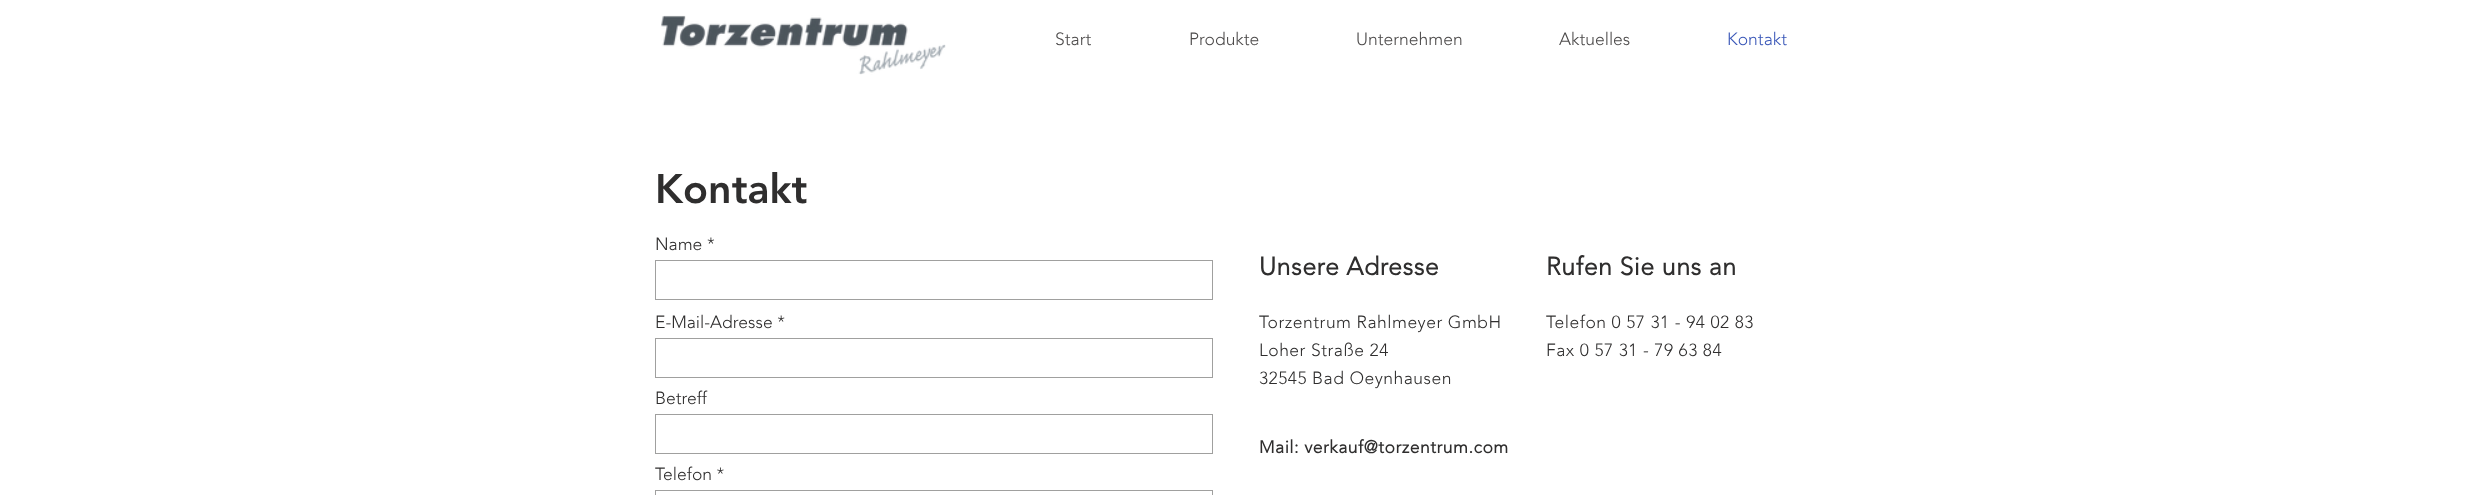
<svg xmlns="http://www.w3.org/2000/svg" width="2467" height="495">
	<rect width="100%" height="100%" fill="#FFFFFF" />
	<image x="661" y="15" width="285" height="60" href="assets/img1.png" />
	<g font-family="'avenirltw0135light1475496'" font-size="17.5" font-weight="300" fill="#4D4B4B">
		<text x="1055" y="45">Start</text>
		<text x="1189" y="45">Produkte</text>
		<text x="1356" y="45">Unternehmen</text>
		<text x="1559" y="45">Aktuelles</text>
	</g>
	<text x="1727" y="45" font-family="'avenirltw0135light1475496'" font-size="17.5" font-weight="300" fill="#3B58B8">Kontakt</text>
	<text x="655" y="203" font-family="'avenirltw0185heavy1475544'" font-size="41" font-weight="900" fill="#2F2E2E">Kontakt</text>
	<text x="655" y="250" font-family="'avenirltw0135light1475496'" font-size="17.5" font-weight="300" fill="#2F2E2E">Name *</text>
	<rect x="655.5" y="260.5" width="557" height="39" fill="none" stroke="#A0A09F" />
	<text x="655" y="328" font-family="'avenirltw0135light1475496'" font-size="17.5" font-weight="300" fill="#2F2E2E">E-Mail-Adresse *</text>
	<rect x="655.5" y="338.5" width="557" height="39" fill="none" stroke="#A0A09F" />
	<text x="655" y="404" font-family="'avenirltw0135light1475496'" font-size="17.5" font-weight="300" fill="#2F2E2E">Betreff</text>
	<rect x="655.5" y="414.5" width="557" height="39" fill="none" stroke="#A0A09F" />
	<text x="655" y="480" font-family="'avenirltw0135light1475496'" font-size="17.5" font-weight="300" fill="#2F2E2E">Telefon *</text>
	<rect x="655.5" y="490.5" width="557" height="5" fill="none" stroke="#A0A09F" />
	<g font-family="'avenirltw0135light1475496'" font-size="25" font-weight="700" letter-spacing="0.5" fill="#2F2E2E">
		<text x="1259" y="275">Unsere Adresse</text>
		<text x="1546" y="275">Rufen Sie uns an</text>
	</g>
	<g font-family="'avenirltw0135light1475496'" font-size="17.5" font-weight="300" letter-spacing="0.5" fill="#2F2E2E">
		<text x="1259" y="328">Torzentrum Rahlmeyer GmbH</text>
		<text x="1259" y="356">Loher Straße 24</text>
		<text x="1259" y="384">32545 Bad Oeynhausen</text>
		<text x="1546" y="328">Telefon 0 57 31 - 94 02 83</text>
		<text x="1546" y="356">Fax 0 57 31 - 79 63 84</text>
	</g>
	<text x="1259" y="453" font-family="'avenirltw0135light1475496'" font-size="17.5" font-weight="700" letter-spacing="0.5" fill="#2F2E2E">Mail: verkauf@torzentrum.com</text>
</svg>
